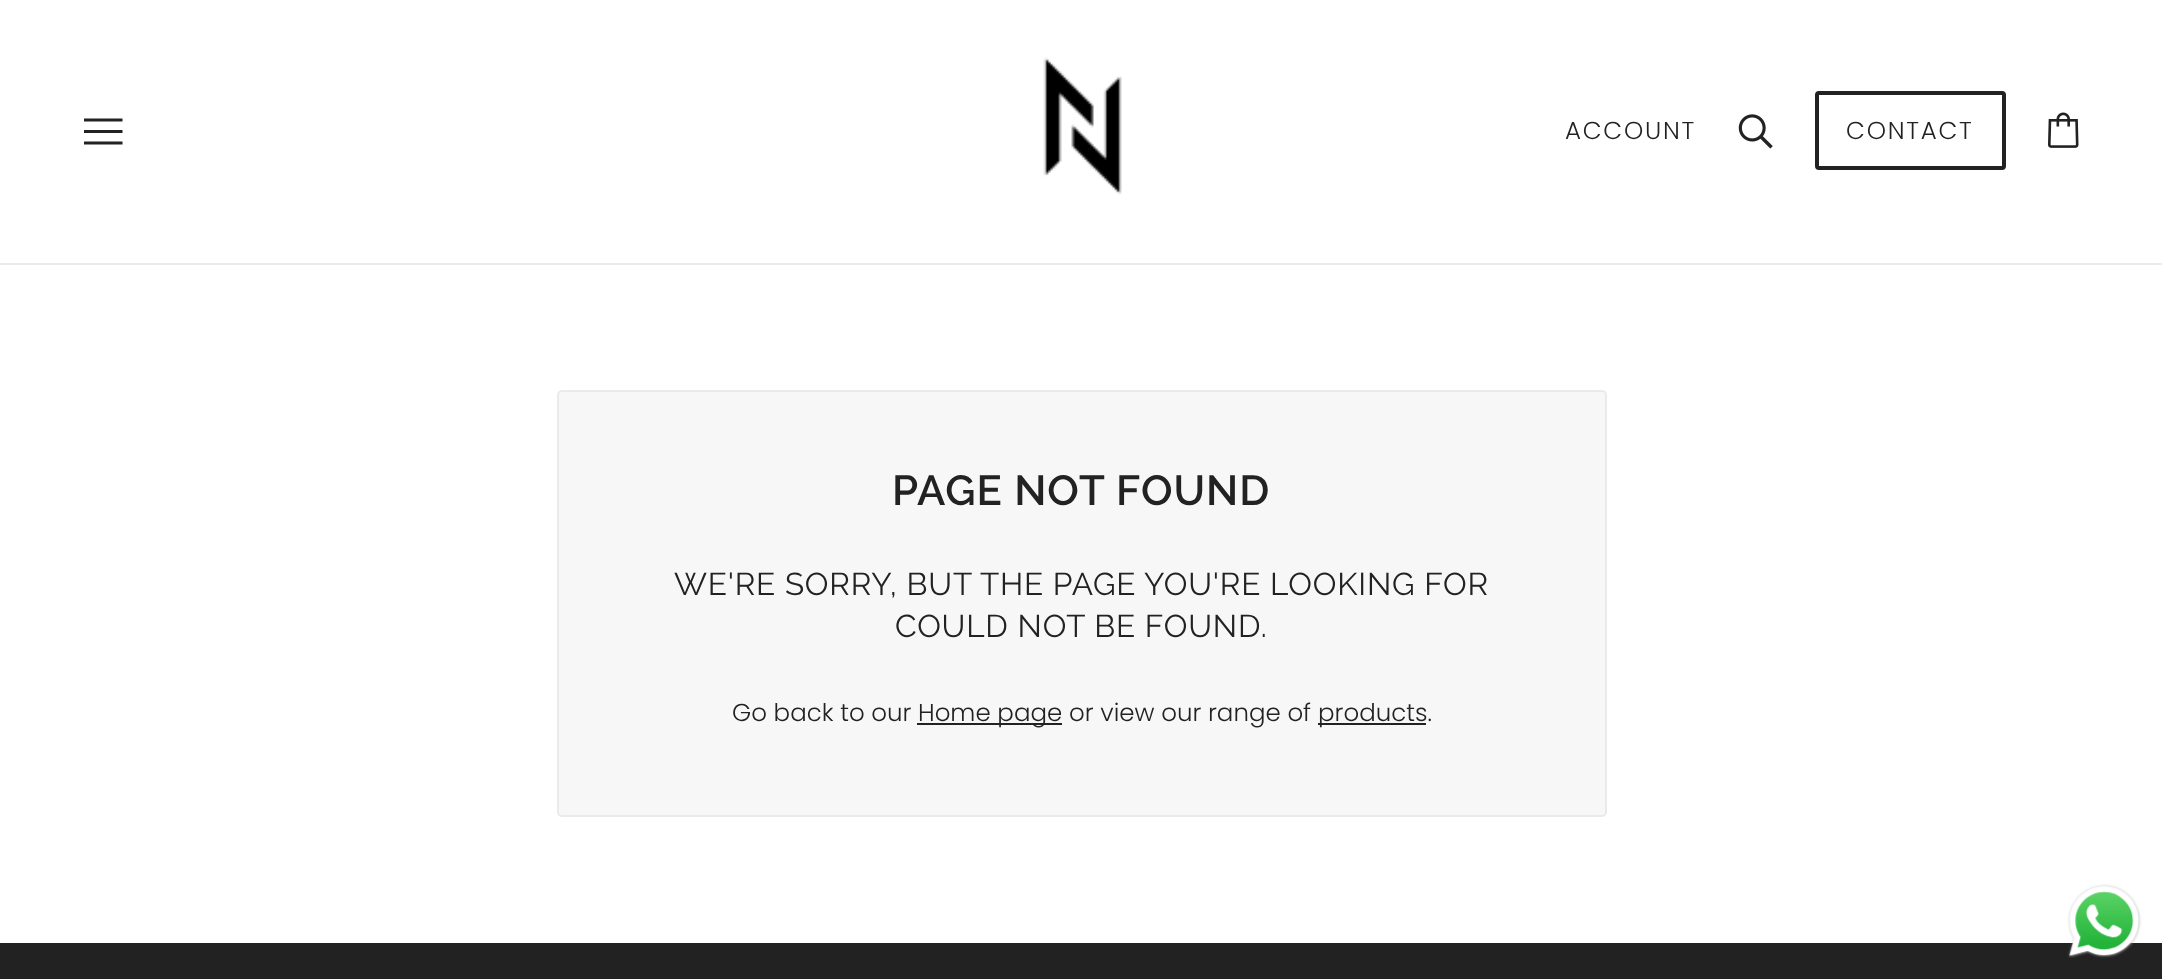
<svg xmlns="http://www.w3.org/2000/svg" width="2162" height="979">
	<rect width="100%" height="100%" fill="#FFFFFF" />
	<rect x="0" y="263" width="2162" height="2" fill="#EAEAEA" />
	<path d="M84 121.5V118.5H122.5V121.5ZM84 133V130H122.5V133ZM84 144.5V141.5H122.5V144.5Z" fill="#222222" />
	<image x="1043" y="57" width="79" height="138" href="assets/img1.png" />
	<text x="1565" y="139" font-family="Poppins" font-size="24.5" font-weight="300" letter-spacing="1.75" fill="#222222">ACCOUNT</text>
	<image x="1738" y="114" width="35" height="35" href="assets/img2.png" />
	<rect x="1817" y="93" width="187" height="75" rx="2" fill="none" stroke="#222222" stroke-width="4" />
	<text x="1846" y="139" font-family="Poppins" font-size="24.5" font-weight="300" letter-spacing="1.75" fill="#222222">CONTACT</text>
	<image x="2048" y="112" width="31" height="36" href="assets/img3.png" />
	<rect x="558" y="391" width="1048" height="425" rx="4" fill="#F7F7F7" stroke="#EAEAEA" stroke-width="2" />
	<text x="892" y="505" font-family="Raleway" font-size="42" font-weight="600" letter-spacing="1" fill="#222222">PAGE NOT FOUND</text>
	<g font-family="Raleway" font-size="31.5" letter-spacing="0.8" fill="#222222">
		<text x="674" y="595">WE'RE SORRY, BUT THE PAGE YOU'RE LOOKING FOR</text>
		<text x="895" y="637">COULD NOT BE FOUND.</text>
	</g>
	<text x="732" y="721" font-family="Poppins" font-size="24.5" font-weight="300" fill="#222222">Go back to our</text>
	<rect x="917" y="723" width="145" height="2" fill="#222222" />
	<text x="918" y="721" font-family="Poppins" font-size="24.5" font-weight="300" fill="#222222">Home page or view our range of</text>
	<rect x="1318" y="723" width="108" height="2" fill="#222222" />
	<text x="1318" y="721" font-family="Poppins" font-size="24.5" font-weight="300" fill="#222222">products.</text>
	<rect x="0" y="943" width="2162" height="36" fill="#222222" />
	<image x="2067" y="884" width="75" height="74" href="assets/img4.png" />
</svg>
